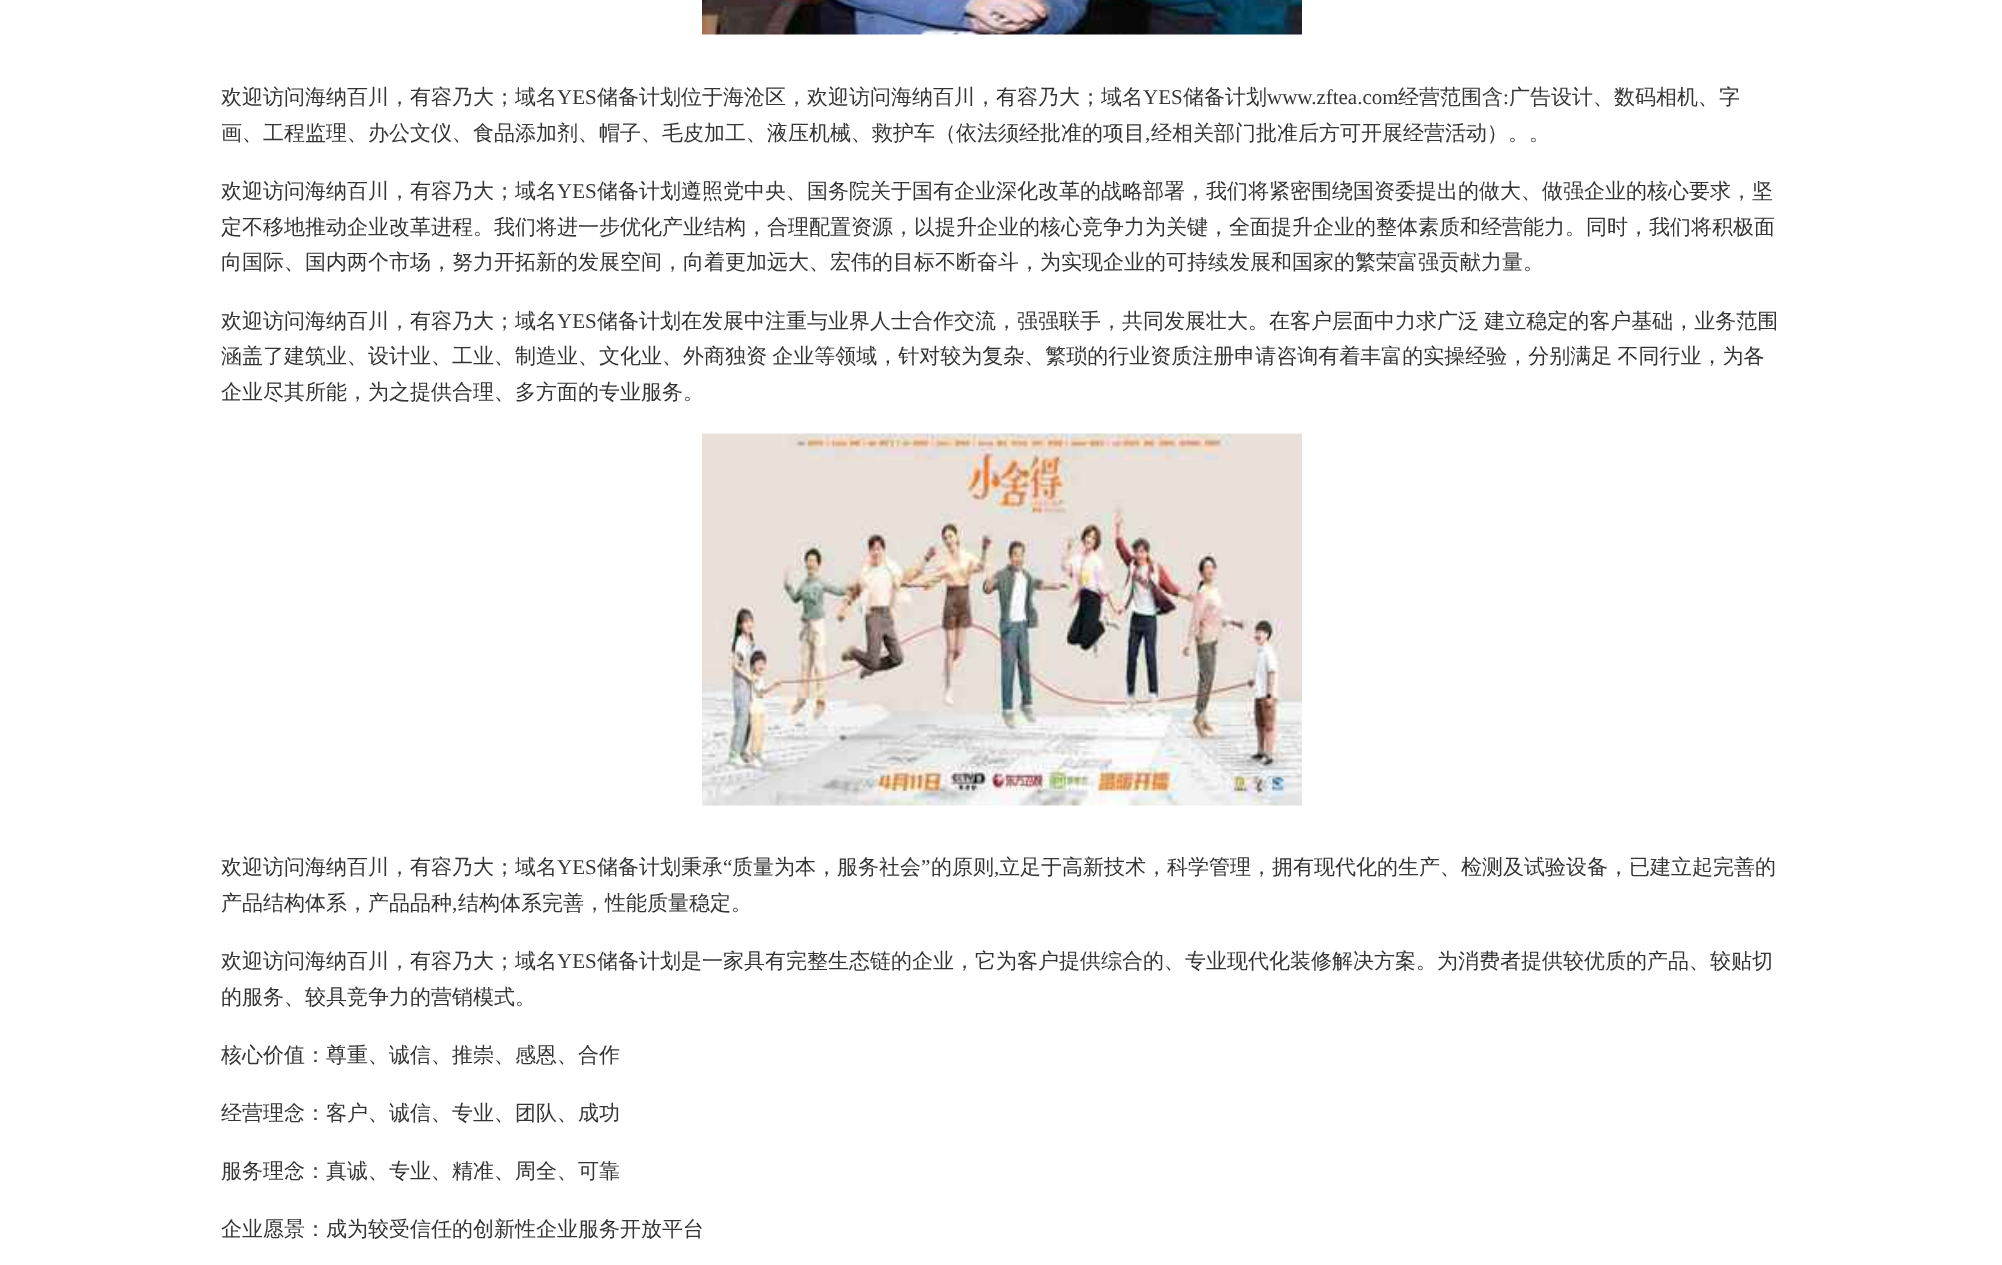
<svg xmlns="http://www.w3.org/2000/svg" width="2002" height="1265">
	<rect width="100%" height="100%" fill="#FFFFFF" />
	<image x="702" y="0" width="600" height="35" href="assets/img1.png" />
	<text x="221" y="104" font-family="WenQuanYi Zen Hei" font-size="21" font-weight="500" fill="#343434">欢迎访问海纳百川，有容乃大；域名</text>
	<text x="557" y="104" font-family="Liberation Serif" font-size="21" fill="#343434">YES</text>
	<text x="597" y="104" font-family="WenQuanYi Zen Hei" font-size="21" font-weight="500" fill="#343434">储备计划位于海沧区，欢迎访问海纳百川，有容乃大；域名</text>
	<text x="1143" y="104" font-family="Liberation Serif" font-size="21" fill="#343434">YES</text>
	<text x="1183" y="104" font-family="WenQuanYi Zen Hei" font-size="21" font-weight="500" fill="#343434">储备计划</text>
	<text x="1267" y="104" font-family="Liberation Serif" font-size="21" fill="#343434">www.zftea.com</text>
	<text x="1398" y="104" font-family="WenQuanYi Zen Hei" font-size="21" font-weight="500" fill="#343434">经营范围含</text>
	<text x="1503" y="104" font-family="Liberation Serif" font-size="21" fill="#343434">:</text>
	<g font-family="WenQuanYi Zen Hei" font-size="21" font-weight="500" fill="#343434">
		<text x="1509" y="104">广告设计、数码相机、字</text>
		<text x="221" y="140">画、工程监理、办公文仪、食品添加剂、帽子、毛皮加工、液压机械、救护车（依法须经批准的项目</text>
	</g>
	<text x="1145" y="140" font-family="Liberation Serif" font-size="21" fill="#343434">,</text>
	<g font-family="WenQuanYi Zen Hei" font-size="21" font-weight="500" fill="#343434">
		<text x="1151" y="140">经相关部门批准后方可开展经营活动）。。</text>
		<text x="221" y="198">欢迎访问海纳百川，有容乃大；域名</text>
	</g>
	<text x="557" y="198" font-family="Liberation Serif" font-size="21" fill="#343434">YES</text>
	<g font-family="WenQuanYi Zen Hei" font-size="21" font-weight="500" fill="#343434">
		<text x="597" y="198">储备计划遵照党中央、国务院关于国有企业深化改革的战略部署，我们将紧密围绕国资委提出的做大、做强企业的核心要求，坚</text>
		<text x="221" y="234">定不移地推动企业改革进程。我们将进一步优化产业结构，合理配置资源，以提升企业的核心竞争力为关键，全面提升企业的整体素质和经营能力。同时，我们将积极面</text>
		<text x="221" y="269">向国际、国内两个市场，努力开拓新的发展空间，向着更加远大、宏伟的目标不断奋斗，为实现企业的可持续发展和国家的繁荣富强贡献力量。</text>
		<text x="221" y="328">欢迎访问海纳百川，有容乃大；域名</text>
	</g>
	<text x="557" y="328" font-family="Liberation Serif" font-size="21" fill="#343434">YES</text>
	<g font-family="WenQuanYi Zen Hei" font-size="21" font-weight="500" fill="#343434">
		<text x="597" y="328" word-spacing="-1">储备计划在发展中注重与业界人士合作交流，强强联手，共同发展壮大。在客户层面中力求广泛 建立稳定的客户基础，业务范围</text>
		<text x="221" y="363" word-spacing="-1">涵盖了建筑业、设计业、工业、制造业、文化业、外商独资 企业等领域，针对较为复杂、繁琐的行业资质注册申请咨询有着丰富的实操经验，分别满足 不同行业，为各</text>
		<text x="221" y="399">企业尽其所能，为之提供合理、多方面的专业服务。</text>
	</g>
	<image x="702" y="433" width="600" height="373" href="assets/img2.png" />
	<text x="221" y="874" font-family="WenQuanYi Zen Hei" font-size="21" font-weight="500" fill="#343434">欢迎访问海纳百川，有容乃大；域名</text>
	<text x="557" y="874" font-family="Liberation Serif" font-size="21" fill="#343434">YES</text>
	<text x="597" y="874" font-family="WenQuanYi Zen Hei" font-size="21" font-weight="500" fill="#343434">储备计划秉承</text>
	<text x="723" y="874" font-family="Liberation Serif" font-size="21" fill="#343434">“</text>
	<text x="732" y="874" font-family="WenQuanYi Zen Hei" font-size="21" font-weight="500" fill="#343434">质量为本，服务社会</text>
	<text x="921" y="874" font-family="Liberation Serif" font-size="21" fill="#343434">”</text>
	<g font-family="WenQuanYi Zen Hei" font-size="21" font-weight="500" fill="#343434">
		<text x="931" y="874">的原则</text>
		<text x="999" y="874">立足于高新技术，科学管理，拥有现代化的生产、检测及试验设备，已建立起完善的</text>
	</g>
	<text x="994" y="874" font-family="Liberation Serif" font-size="21" fill="#343434">,</text>
	<text x="221" y="910" font-family="WenQuanYi Zen Hei" font-size="21" font-weight="500" fill="#343434">产品结构体系，产品品种</text>
	<text x="452" y="910" font-family="Liberation Serif" font-size="21" fill="#343434">,</text>
	<g font-family="WenQuanYi Zen Hei" font-size="21" font-weight="500" fill="#343434">
		<text x="458" y="910">结构体系完善，性能质量稳定。</text>
		<text x="221" y="968">欢迎访问海纳百川，有容乃大；域名</text>
	</g>
	<text x="557" y="968" font-family="Liberation Serif" font-size="21" fill="#343434">YES</text>
	<g font-family="WenQuanYi Zen Hei" font-size="21" font-weight="500" fill="#343434">
		<text x="597" y="968">储备计划是一家具有完整生态链的企业，它为客户提供综合的、专业现代化装修解决方案。为消费者提供较优质的产品、较贴切</text>
		<text x="221" y="1004">的服务、较具竞争力的营销模式。</text>
		<text x="221" y="1062">核心价值：尊重、诚信、推崇、感恩、合作</text>
		<text x="221" y="1120">经营理念：客户、诚信、专业、团队、成功</text>
		<text x="221" y="1178">服务理念：真诚、专业、精准、周全、可靠</text>
		<text x="221" y="1236">企业愿景：成为较受信任的创新性企业服务开放平台</text>
	</g>
</svg>
